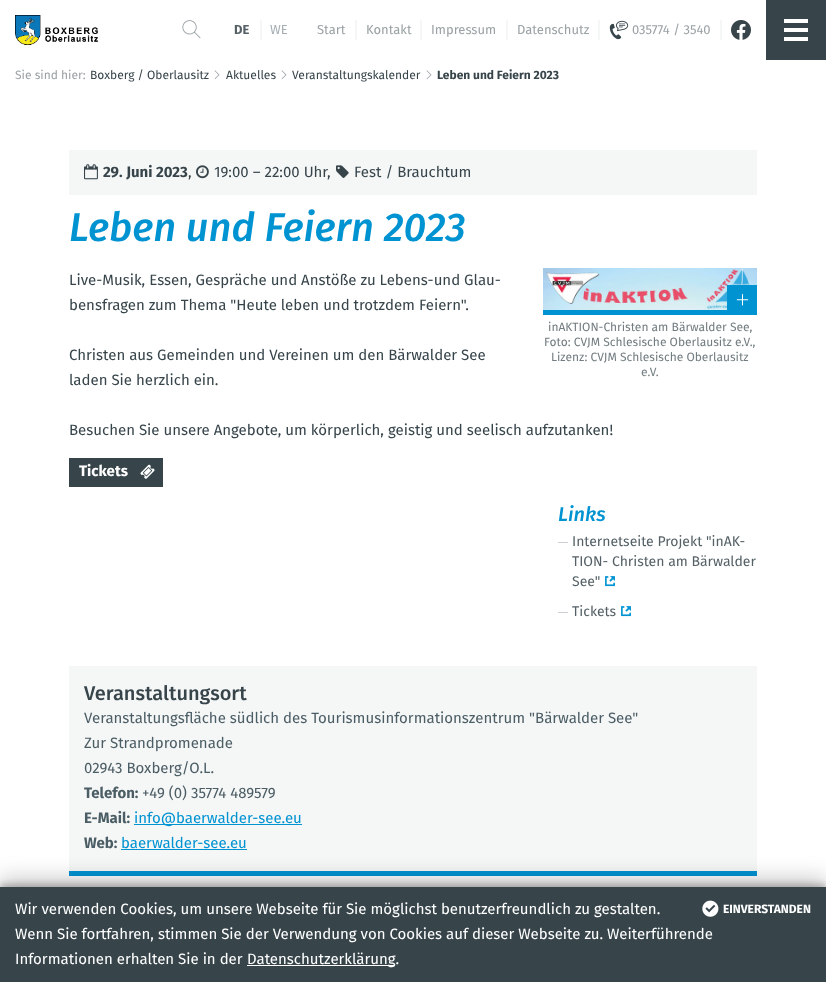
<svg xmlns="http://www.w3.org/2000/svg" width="826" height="982">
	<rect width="100%" height="100%" fill="#FFFFFF" />
	<image x="15" y="15" width="83" height="30" href="assets/img1.png" />
	<image x="182" y="20" width="19" height="19" href="assets/img2.png" />
	<text x="234" y="34" font-family="Fira Sans" font-size="13" font-weight="700" fill="#556166">DE</text>
	<rect x="260" y="20" width="2" height="20" fill="#F5F6F6" />
	<text x="270" y="34" font-family="Fira Sans" font-size="13" fill="#A5AEB2">WE</text>
	<text x="317" y="34" font-family="Fira Sans" font-size="13" fill="#9BA2A5">Start</text>
	<rect x="355" y="20" width="2" height="20" fill="#F5F6F6" />
	<text x="366" y="34" font-family="Fira Sans" font-size="13" fill="#9BA2A5">Kontakt</text>
	<rect x="420" y="20" width="2" height="20" fill="#F5F6F6" />
	<text x="431" y="34" font-family="Fira Sans" font-size="13" fill="#9BA2A5">Impressum</text>
	<rect x="506" y="20" width="2" height="20" fill="#F5F6F6" />
	<text x="517" y="34" font-family="Fira Sans" font-size="13" fill="#9BA2A5">Datenschutz</text>
	<rect x="598" y="20" width="2" height="20" fill="#F5F6F6" />
	<image x="609" y="20" width="20" height="20" href="assets/img3.png" />
	<text x="632" y="34" font-family="Fira Sans" font-size="13" fill="#9BA2A5">035774 / 3540</text>
	<rect x="720" y="20" width="2" height="20" fill="#F5F6F6" />
	<image x="731" y="20" width="20" height="20" href="assets/img4.png" />
	<rect x="766" y="0" width="60" height="60" fill="#37454B" />
	<rect x="784" y="19" width="24" height="4" fill="#FFFFFF" />
	<rect x="784" y="28" width="24" height="4" fill="#FFFFFF" />
	<rect x="784" y="37" width="24" height="4" fill="#FFFFFF" />
	<text x="15" y="79" font-family="Fira Sans" font-size="12" fill="#9BA2A5">Sie sind hier:</text>
	<text x="90" y="79" font-family="Fira Sans" font-size="12" fill="#37454B">Boxberg / Oberlausitz</text>
	<image x="214" y="70" width="6" height="10" href="assets/img5.png" />
	<text x="226" y="79" font-family="Fira Sans" font-size="12" fill="#37454B">Aktuelles</text>
	<image x="281" y="70" width="6" height="10" href="assets/img5.png" />
	<text x="292" y="79" font-family="Fira Sans" font-size="12" fill="#37454B">Veranstaltungskalender</text>
	<image x="426" y="70" width="6" height="10" href="assets/img5.png" />
	<text x="437" y="79" font-family="Fira Sans" font-size="12" font-weight="700" fill="#37454B">Leben und Feiern 2023</text>
	<rect x="69" y="150" width="688" height="45" fill="#F5F6F6" />
	<image x="84" y="164" width="14" height="16" href="assets/img6.png" />
	<text x="103" y="177" font-family="Fira Sans" font-size="15" font-weight="700" fill="#37454B">29. Juni 2023</text>
	<text x="188" y="177" font-family="Fira Sans" font-size="15" fill="#37454B">,</text>
	<image x="196" y="165" width="13" height="14" href="assets/img7.png" />
	<g font-family="Fira Sans" font-size="15" fill="#37454B">
		<text x="214" y="177">19:00 – 22:00 Uhr</text>
		<text x="327" y="177">,</text>
	</g>
	<image x="336" y="165" width="13" height="13" href="assets/img8.png" />
	<text x="354" y="177" font-family="Fira Sans" font-size="15" fill="#37454B">Fest / Brauchtum</text>
	<text x="69" y="241" font-family="Fira Sans" font-size="40" font-weight="500" font-style="italic" fill="#0093D2">Leben und Feiern 2023</text>
	<g font-family="Fira Sans" font-size="15" fill="#37454B">
		<text x="69" y="285">Live-Musik, Essen, Gespräche und Anstöße zu Lebens-und Glau-</text>
		<text x="69" y="310">bensfragen zum Thema "Heute leben und trotzdem Feiern".</text>
		<text x="69" y="360">Christen aus Gemeinden und Vereinen um den Bärwalder See</text>
		<text x="69" y="385">laden Sie herzlich ein.</text>
		<text x="69" y="435">Besuchen Sie unsere Angebote, um körperlich, geistig und seelisch aufzutanken!</text>
	</g>
	<rect x="543" y="310" width="214" height="5" fill="#0093D2" />
	<image x="543" y="268" width="214" height="42" href="assets/img9.png" />
	<rect x="727" y="285" width="30" height="25" fill="#0093D2" />
	<image x="736" y="294" width="13" height="12" href="assets/img10.png" />
	<g font-family="Fira Sans" font-size="12" fill="#737D81">
		<text x="548" y="331">inAKTION-Christen am Bärwalder See,</text>
		<text x="544" y="346">Foto: CVJM Schlesische Oberlausitz e.V.,</text>
		<text x="551" y="361">Lizenz: CVJM Schlesische Oberlausitz</text>
		<text x="641" y="376">e.V.</text>
	</g>
	<rect x="69" y="458" width="94" height="29" fill="#37454B" />
	<text x="79" y="476" font-family="Fira Sans" font-size="15" font-weight="700" fill="#FFFFFF">Tickets</text>
	<image x="140" y="464" width="15" height="15" href="assets/img11.png" />
	<text x="558" y="521" font-family="Fira Sans" font-size="20" font-weight="500" font-style="italic" fill="#0093D2">Links</text>
	<rect x="558" y="542" width="10" height="1" fill="#CDD0D2" />
	<g font-family="Fira Sans" font-size="14" fill="#556166">
		<text x="572" y="546">Internetseite Projekt "inAK-</text>
		<text x="572" y="566">TION- Christen am Bärwalder</text>
		<text x="572" y="586">See"</text>
	</g>
	<image x="605" y="576" width="10" height="11" href="assets/img12.png" />
	<rect x="558" y="612" width="10" height="1" fill="#CDD0D2" />
	<text x="572" y="616" font-family="Fira Sans" font-size="14" fill="#556166">Tickets</text>
	<image x="621" y="606" width="10" height="11" href="assets/img12.png" />
	<rect x="69" y="666" width="688" height="205" fill="#F5F6F6" />
	<rect x="69" y="871" width="688" height="5" fill="#0093D2" />
	<text x="84" y="700" font-family="Fira Sans" font-size="20" font-weight="500" fill="#37454B">Veranstaltungsort</text>
	<g font-family="Fira Sans" font-size="15" fill="#4B5D65">
		<text x="84" y="723">Veranstaltungsfläche südlich des Tourismusinformationszentrum "Bärwalder See"</text>
		<text x="84" y="748">Zur Strandpromenade</text>
		<text x="84" y="773">02943 Boxberg/O.L.</text>
	</g>
	<text x="84" y="798" font-family="Fira Sans" font-size="15" font-weight="700" fill="#4B5D65">Telefon:</text>
	<text x="142" y="798" font-family="Fira Sans" font-size="15" fill="#4B5D65">+49 (0) 35774 489579</text>
	<text x="84" y="823" font-family="Fira Sans" font-size="15" font-weight="700" fill="#4B5D65">E-Mail:</text>
	<rect x="134" y="824" width="168" height="1" fill="#0093D2" />
	<text x="134" y="823" font-family="Fira Sans" font-size="15" fill="#0093D2">info@baerwalder-see.eu</text>
	<text x="84" y="848" font-family="Fira Sans" font-size="15" font-weight="700" fill="#4B5D65">Web:</text>
	<text x="121" y="848" font-family="Fira Sans" font-size="15" fill="#0093D2">baerwalder-see.eu</text>
	<rect x="121" y="849" width="126" height="1" fill="#0093D2" />
	<rect x="0" y="884" width="826" height="95" fill="#000000" fill-opacity="0.23" filter="blur(3px)" />
	<rect x="0" y="877" width="826" height="95" fill="#000000" fill-opacity="0.19" filter="blur(10px)" />
	<rect x="0" y="887" width="826" height="95" fill="#37454B" />
	<text x="15" y="914" font-family="Fira Sans" font-size="15" fill="#FFFFFF">Wir verwenden Cookies, um unsere Webseite für Sie möglichst benutzerfreundlich zu gestalten.</text>
	<image x="702" y="900" width="17" height="17" href="assets/img13.png" />
	<text x="723" y="913" font-family="Fira Sans" font-size="12" font-weight="700" fill="#FFFFFF">EINVERSTANDEN</text>
	<g font-family="Fira Sans" font-size="15" fill="#FFFFFF">
		<text x="15" y="939">Wenn Sie fortfahren, stimmen Sie der Verwendung von Cookies auf dieser Webseite zu. Weiterführende</text>
		<text x="15" y="964">Informationen erhalten Sie in der</text>
	</g>
	<rect x="247" y="965" width="148" height="1" fill="#FFFFFF" />
	<text x="247" y="964" font-family="Fira Sans" font-size="15" fill="#FFFFFF">Datenschutzerklärung.</text>
</svg>
